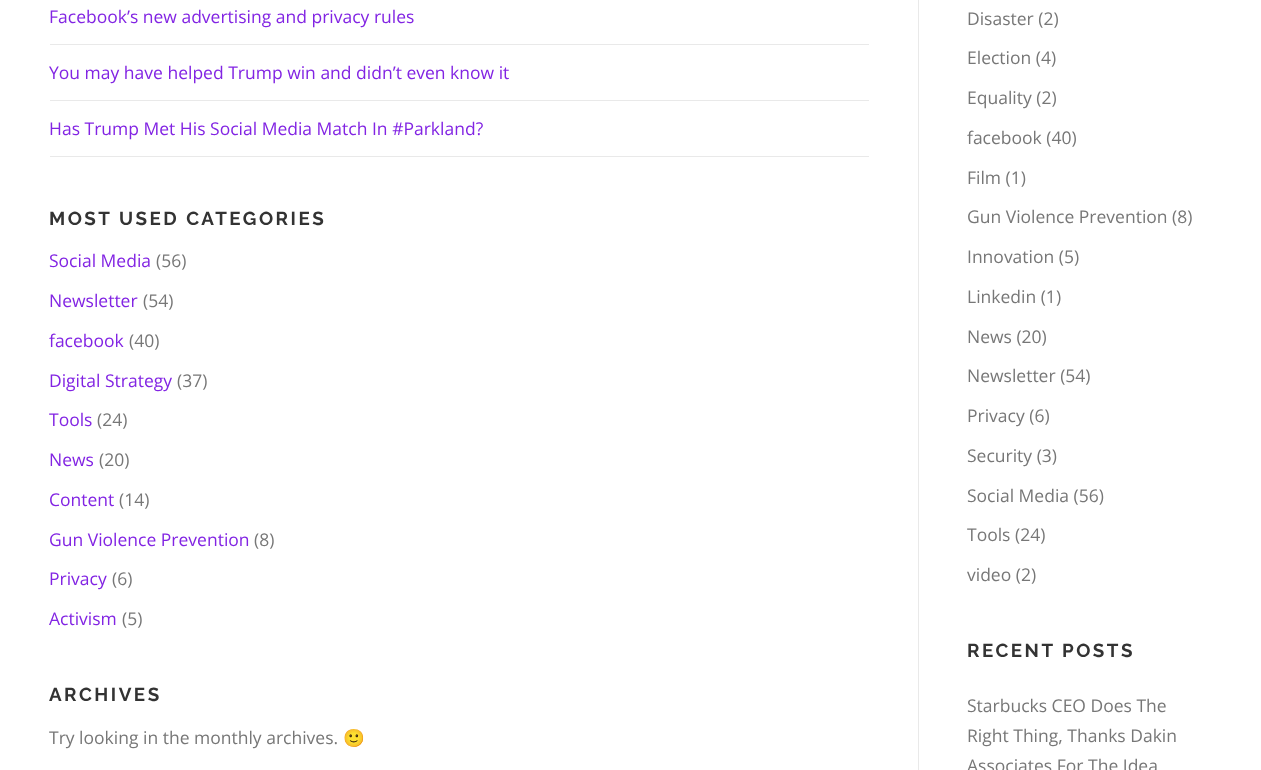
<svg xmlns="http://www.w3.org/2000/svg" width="1261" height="770">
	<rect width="100%" height="100%" fill="#FFFFFF" />
	<rect x="918" y="0" width="1" height="770" fill="#E9E9E9" />
	<rect x="50" y="44" width="819" height="1" fill="#E9E9E9" />
	<text x="49" y="23" font-family="Open Sans" font-size="17.5" fill="#8224E3">Facebook’s new advertising and privacy rules</text>
	<rect x="50" y="100" width="819" height="1" fill="#E9E9E9" />
	<text x="49" y="79" font-family="Open Sans" font-size="17.5" fill="#8224E3">You may have helped Trump win and didn’t even know it</text>
	<rect x="50" y="156" width="819" height="1" fill="#E9E9E9" />
	<text x="49" y="135" font-family="Open Sans" font-size="17.5" fill="#8224E3">Has Trump Met His Social Media Match In #Parkland?</text>
	<text x="49" y="225" font-family="Raleway" font-size="18.75" font-weight="700" letter-spacing="2.5" fill="#333333">MOST USED CATEGORIES</text>
	<text x="49" y="267" font-family="Open Sans" font-size="17.5" fill="#8224E3">Social Media</text>
	<text x="156" y="267" font-family="Open Sans" font-size="17.5" fill="#777777">(56)</text>
	<text x="49" y="307" font-family="Open Sans" font-size="17.5" fill="#8224E3">Newsletter</text>
	<text x="143" y="307" font-family="Open Sans" font-size="17.5" fill="#777777">(54)</text>
	<text x="49" y="347" font-family="Open Sans" font-size="17.5" fill="#8224E3">facebook</text>
	<text x="129" y="347" font-family="Open Sans" font-size="17.5" fill="#777777">(40)</text>
	<text x="49" y="387" font-family="Open Sans" font-size="17.5" fill="#8224E3">Digital Strategy</text>
	<text x="177" y="387" font-family="Open Sans" font-size="17.5" fill="#777777">(37)</text>
	<text x="49" y="426" font-family="Open Sans" font-size="17.5" fill="#8224E3">Tools</text>
	<text x="97" y="426" font-family="Open Sans" font-size="17.5" fill="#777777">(24)</text>
	<text x="49" y="466" font-family="Open Sans" font-size="17.5" fill="#8224E3">News</text>
	<text x="99" y="466" font-family="Open Sans" font-size="17.5" fill="#777777">(20)</text>
	<text x="49" y="506" font-family="Open Sans" font-size="17.5" fill="#8224E3">Content</text>
	<text x="119" y="506" font-family="Open Sans" font-size="17.5" fill="#777777">(14)</text>
	<text x="49" y="546" font-family="Open Sans" font-size="17.5" fill="#8224E3">Gun Violence Prevention</text>
	<text x="254" y="546" font-family="Open Sans" font-size="17.5" fill="#777777">(8)</text>
	<text x="49" y="585" font-family="Open Sans" font-size="17.5" fill="#8224E3">Privacy</text>
	<text x="112" y="585" font-family="Open Sans" font-size="17.5" fill="#777777">(6)</text>
	<text x="49" y="625" font-family="Open Sans" font-size="17.5" fill="#8224E3">Activism</text>
	<text x="122" y="625" font-family="Open Sans" font-size="17.5" fill="#777777">(5)</text>
	<text x="49" y="701" font-family="Raleway" font-size="18.75" font-weight="700" letter-spacing="2.5" fill="#333333">ARCHIVES</text>
	<text x="49" y="744" font-family="Open Sans" font-size="17.5" fill="#777777">Try looking in the monthly archives.</text>
	<text x="343" y="744" font-family="Noto Color Emoji" font-size="17.5" fill="#777777">🙂</text>
	<g font-family="Open Sans" font-size="17.5" fill="#777777">
		<text x="967" y="25">Disaster (2)</text>
		<text x="967" y="64">Election (4)</text>
		<text x="967" y="104">Equality (2)</text>
		<text x="967" y="144">facebook (40)</text>
		<text x="967" y="184">Film (1)</text>
		<text x="967" y="223">Gun Violence Prevention (8)</text>
		<text x="967" y="263">Innovation (5)</text>
		<text x="967" y="303">Linkedin (1)</text>
		<text x="967" y="343">News (20)</text>
		<text x="967" y="382">Newsletter (54)</text>
		<text x="967" y="422">Privacy (6)</text>
		<text x="967" y="462">Security (3)</text>
		<text x="967" y="502">Social Media (56)</text>
		<text x="967" y="541">Tools (24)</text>
		<text x="967" y="581">video (2)</text>
	</g>
	<text x="967" y="657" font-family="Raleway" font-size="18.75" font-weight="700" letter-spacing="2.5" fill="#333333">RECENT POSTS</text>
	<g font-family="Open Sans" font-size="17.5" fill="#777777">
		<text x="967" y="712">Starbucks CEO Does The</text>
		<text x="967" y="742">Right Thing, Thanks Dakin</text>
		<text x="967" y="772">Associates For The Idea</text>
	</g>
</svg>
